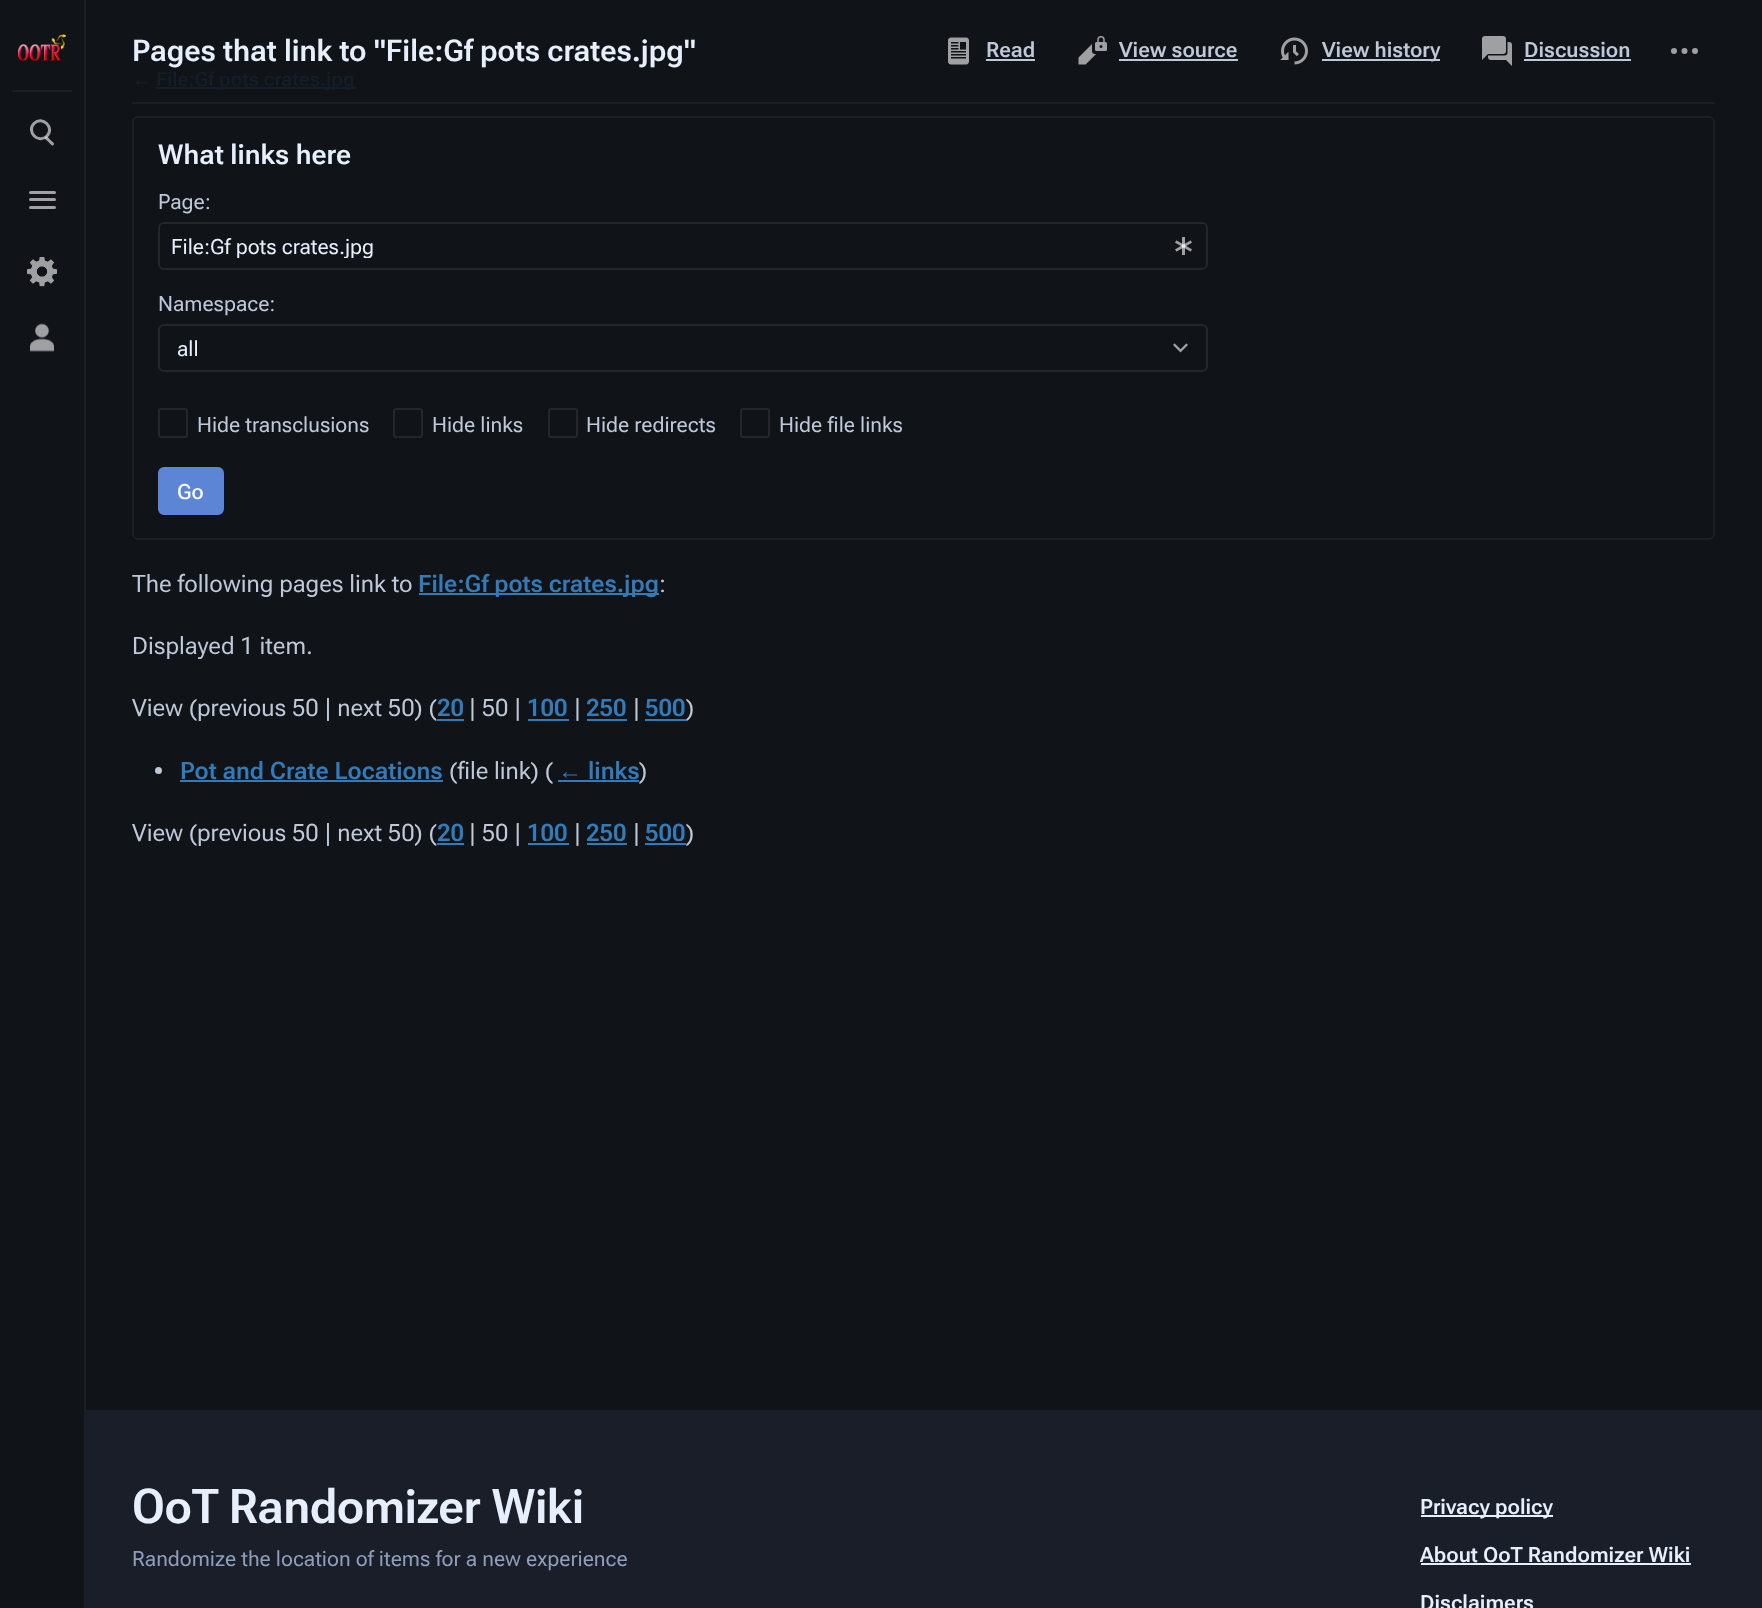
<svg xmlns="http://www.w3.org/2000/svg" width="1762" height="1608">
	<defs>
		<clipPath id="clip1"><rect x="171" y="234" width="993" height="24" /></clipPath>
	</defs>
	<rect width="100%" height="100%" fill="#101318" />
	<rect x="84" y="0" width="2" height="1608" fill="#1C1F24" />
	<rect x="12" y="90" width="60" height="2" fill="#1C1F24" />
	<image x="18" y="34" width="48" height="27" href="assets/img1.png" />
	<path d="M45.5 137C47 135 49.5 139 50.5 140C51.5 141 55.5 143.5 53.5 145C52 147 49.5 143 48.5 142C47.5 141 43.5 138.5 45.5 137Z" fill="#9FA1A3" />
	<path d="M34 123.5C42.5 115 55 128 47 136C38.5 144.5 26 131.5 34 123.5Z" fill="none" stroke="#FFFFFF" stroke-opacity="0.6" stroke-width="3" />
	<rect x="29" y="191" width="27" height="3" rx="1.5" fill="#9FA1A3" />
	<rect x="29" y="198" width="27" height="3" rx="1.5" fill="#9FA1A3" />
	<rect x="29" y="206" width="27" height="3" rx="1.5" fill="#9FA1A3" />
	<image x="27" y="257" width="30" height="30" href="assets/img2.png" />
	<image x="30" y="323" width="24" height="29" href="assets/img3.png" />
	<rect x="132" y="102" width="1583" height="2" fill="#1C1F24" />
	<text x="132" y="61" font-family="'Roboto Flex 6'" font-size="30" font-weight="600" fill="#E8EFFC">Pages that link to "File:Gf pots crates.jpg"</text>
	<image x="948" y="37" width="21" height="28" href="assets/img4.png" />
	<text x="986" y="57" font-family="'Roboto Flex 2'" font-size="21" font-weight="600" fill="#BFC8D9">Read</text>
	<rect x="986" y="59" width="49" height="2" fill="#BFC8D9" />
	<image x="1078" y="36" width="29" height="29" href="assets/img5.png" />
	<text x="1119" y="57" font-family="'Roboto Flex 2'" font-size="21" font-weight="600" fill="#BFC8D9">View source</text>
	<rect x="1119" y="59" width="119" height="2" fill="#BFC8D9" />
	<image x="1280" y="37" width="28" height="28" href="assets/img6.png" />
	<rect x="1322" y="59" width="118" height="2" fill="#BFC8D9" />
	<text x="1322" y="57" font-family="'Roboto Flex 2'" font-size="21" font-weight="600" fill="#BFC8D9">View history</text>
	<image x="1482" y="36" width="30" height="30" href="assets/img7.png" />
	<text x="1524" y="57" font-family="'Roboto Flex 2'" font-size="21" font-weight="600" fill="#BFC8D9">Discussion</text>
	<rect x="1524" y="59" width="107" height="2" fill="#BFC8D9" />
	<image x="1671" y="48" width="27" height="6" href="assets/img8.png" />
	<text x="132" y="86" font-family="Liberation Sans" font-size="19.5" fill="#1D2128">←</text>
	<rect x="156" y="87" width="200" height="2" fill="#141D28" />
	<text x="156" y="86" font-family="'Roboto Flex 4'" font-size="19.5" font-weight="600" fill="#141D28">File:Gf pots crates.jpg</text>
	<rect x="133" y="117" width="1581" height="422" rx="5" fill="none" stroke="#1C1F24" stroke-width="2" />
	<text x="158" y="164" font-family="'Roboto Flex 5'" font-size="27.5" font-weight="600" fill="#E8EFFC">What links here</text>
	<text x="158" y="209" font-family="'Roboto Flex 2'" font-size="21" fill="#BFC8D9">Page:</text>
	<rect x="159" y="223" width="1048" height="46" rx="5" fill="none" stroke="#23262A" stroke-width="2" />
	<g clip-path="url(#clip1)">
		<text x="171" y="254" font-family="'Roboto Flex 2'" font-size="21" fill="#E8EFFC">File:Gf pots crates.jpg</text>
	</g>
	<image x="1175" y="237" width="17" height="18" href="assets/img9.png" />
	<text x="158" y="311" font-family="'Roboto Flex 2'" font-size="21" fill="#BFC8D9">Namespace:</text>
	<rect x="159" y="325" width="1048" height="46" rx="5" fill="none" stroke="#23262A" stroke-width="2" />
	<text x="177" y="356" font-family="'Roboto Flex 2'" font-size="21" fill="#E8EFFC">all</text>
	<image x="1173" y="343" width="15" height="10" href="assets/img10.png" />
	<rect x="159" y="409" width="28" height="28" rx="2" fill="none" stroke="#23262A" stroke-width="2" />
	<text x="197" y="432" font-family="'Roboto Flex 2'" font-size="21" fill="#BFC8D9">Hide transclusions</text>
	<rect x="394" y="409" width="28" height="28" rx="2" fill="none" stroke="#23262A" stroke-width="2" />
	<text x="432" y="432" font-family="'Roboto Flex 2'" font-size="21" fill="#BFC8D9">Hide links</text>
	<rect x="549" y="409" width="28" height="28" rx="2" fill="none" stroke="#23262A" stroke-width="2" />
	<text x="586" y="432" font-family="'Roboto Flex 2'" font-size="21" fill="#BFC8D9">Hide redirects</text>
	<rect x="741" y="409" width="28" height="28" rx="2" fill="none" stroke="#23262A" stroke-width="2" />
	<text x="779" y="432" font-family="'Roboto Flex 2'" font-size="21" fill="#BFC8D9">Hide file links</text>
	<rect x="159" y="468" width="64" height="46" rx="5" fill="#5C85D6" stroke="#5C85D6" stroke-width="2" />
	<text x="177" y="499" font-family="Roboto Flex" font-size="21" font-weight="500" fill="#FFFFFF">Go</text>
	<text x="132" y="592" font-family="Roboto Flex" font-size="24" fill="#BFC8D9">The following pages link to</text>
	<rect x="419" y="593" width="240" height="2" fill="#337AB7" />
	<text x="418" y="592" font-family="Roboto Flex" font-size="24" font-weight="600" fill="#337AB7">File:Gf pots crates.jpg</text>
	<g font-family="Roboto Flex" font-size="24" fill="#BFC8D9">
		<text x="659" y="592">:</text>
		<text x="132" y="654">Displayed 1 item.</text>
		<text x="132" y="716">View (previous 50 | next 50) (</text>
	</g>
	<text x="437" y="716" font-family="Roboto Flex" font-size="24" font-weight="600" fill="#337AB7">20</text>
	<rect x="437" y="719" width="27" height="2" fill="#337AB7" />
	<text x="469" y="716" font-family="Roboto Flex" font-size="24" fill="#BFC8D9">| 50 |</text>
	<text x="527" y="716" font-family="Roboto Flex" font-size="24" font-weight="600" fill="#337AB7">100</text>
	<rect x="528" y="719" width="41" height="2" fill="#337AB7" />
	<text x="574" y="716" font-family="Roboto Flex" font-size="24" fill="#BFC8D9">|</text>
	<text x="586" y="716" font-family="Roboto Flex" font-size="24" font-weight="600" fill="#337AB7">250</text>
	<rect x="587" y="719" width="40" height="2" fill="#337AB7" />
	<text x="633" y="716" font-family="Roboto Flex" font-size="24" fill="#BFC8D9">|</text>
	<text x="645" y="716" font-family="Roboto Flex" font-size="24" font-weight="600" fill="#337AB7">500</text>
	<rect x="645" y="719" width="41" height="2" fill="#337AB7" />
	<text x="686" y="716" font-family="Roboto Flex" font-size="24" fill="#BFC8D9">)</text>
	<circle cx="158.5" cy="770.5" r="3.5" fill="#BFC8D9" />
	<text x="180" y="779" font-family="Roboto Flex" font-size="24" font-weight="600" fill="#337AB7">Pot and Crate Locations</text>
	<rect x="180" y="780" width="263" height="2" fill="#337AB7" />
	<text x="449" y="779" font-family="Roboto Flex" font-size="24" fill="#BFC8D9">(file link)  (</text>
	<text x="588" y="779" font-family="'Roboto Flex 2'" font-size="24" font-weight="600" fill="#337AB7">links</text>
	<text x="639" y="779" font-family="Roboto Flex" font-size="24" fill="#BFC8D9">)</text>
	<text x="558" y="779" font-family="Liberation Sans" font-size="24" font-weight="700" fill="#337AB7">←</text>
	<rect x="558" y="780" width="81" height="2" fill="#337AB7" />
	<text x="132" y="841" font-family="Roboto Flex" font-size="24" fill="#BFC8D9">View (previous 50 | next 50) (</text>
	<text x="437" y="841" font-family="Roboto Flex" font-size="24" font-weight="600" fill="#337AB7">20</text>
	<rect x="437" y="843" width="27" height="2" fill="#337AB7" />
	<text x="469" y="841" font-family="Roboto Flex" font-size="24" fill="#BFC8D9">| 50 |</text>
	<text x="527" y="841" font-family="Roboto Flex" font-size="24" font-weight="600" fill="#337AB7">100</text>
	<rect x="528" y="843" width="41" height="2" fill="#337AB7" />
	<text x="574" y="841" font-family="Roboto Flex" font-size="24" fill="#BFC8D9">|</text>
	<text x="586" y="841" font-family="Roboto Flex" font-size="24" font-weight="600" fill="#337AB7">250</text>
	<rect x="587" y="843" width="40" height="2" fill="#337AB7" />
	<text x="633" y="841" font-family="Roboto Flex" font-size="24" fill="#BFC8D9">|</text>
	<text x="645" y="841" font-family="Roboto Flex" font-size="24" font-weight="600" fill="#337AB7">500</text>
	<rect x="645" y="843" width="41" height="2" fill="#337AB7" />
	<text x="686" y="841" font-family="Roboto Flex" font-size="24" fill="#BFC8D9">)</text>
	<rect x="86" y="1410" width="1676" height="198" fill="#191E29" />
	<text x="132" y="1523" font-family="'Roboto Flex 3'" font-size="48" font-weight="600" fill="#E8EFFC">OoT Randomizer Wiki</text>
	<text x="132" y="1566" font-family="'Roboto Flex 2'" font-size="21" fill="#8F9EBC">Randomize the location of items for a new experience</text>
	<rect x="1421" y="1515" width="132" height="2" fill="#E8EFFC" />
	<g font-family="'Roboto Flex 2'" font-size="21" font-weight="600" fill="#E8EFFC">
		<text x="1420" y="1514">Privacy policy</text>
		<text x="1420" y="1562">About OoT Randomizer Wiki</text>
	</g>
	<rect x="1421" y="1563" width="270" height="2" fill="#E8EFFC" />
	<text x="1420" y="1610" font-family="'Roboto Flex 2'" font-size="21" font-weight="600" fill="#E8EFFC">Disclaimers</text>
</svg>
